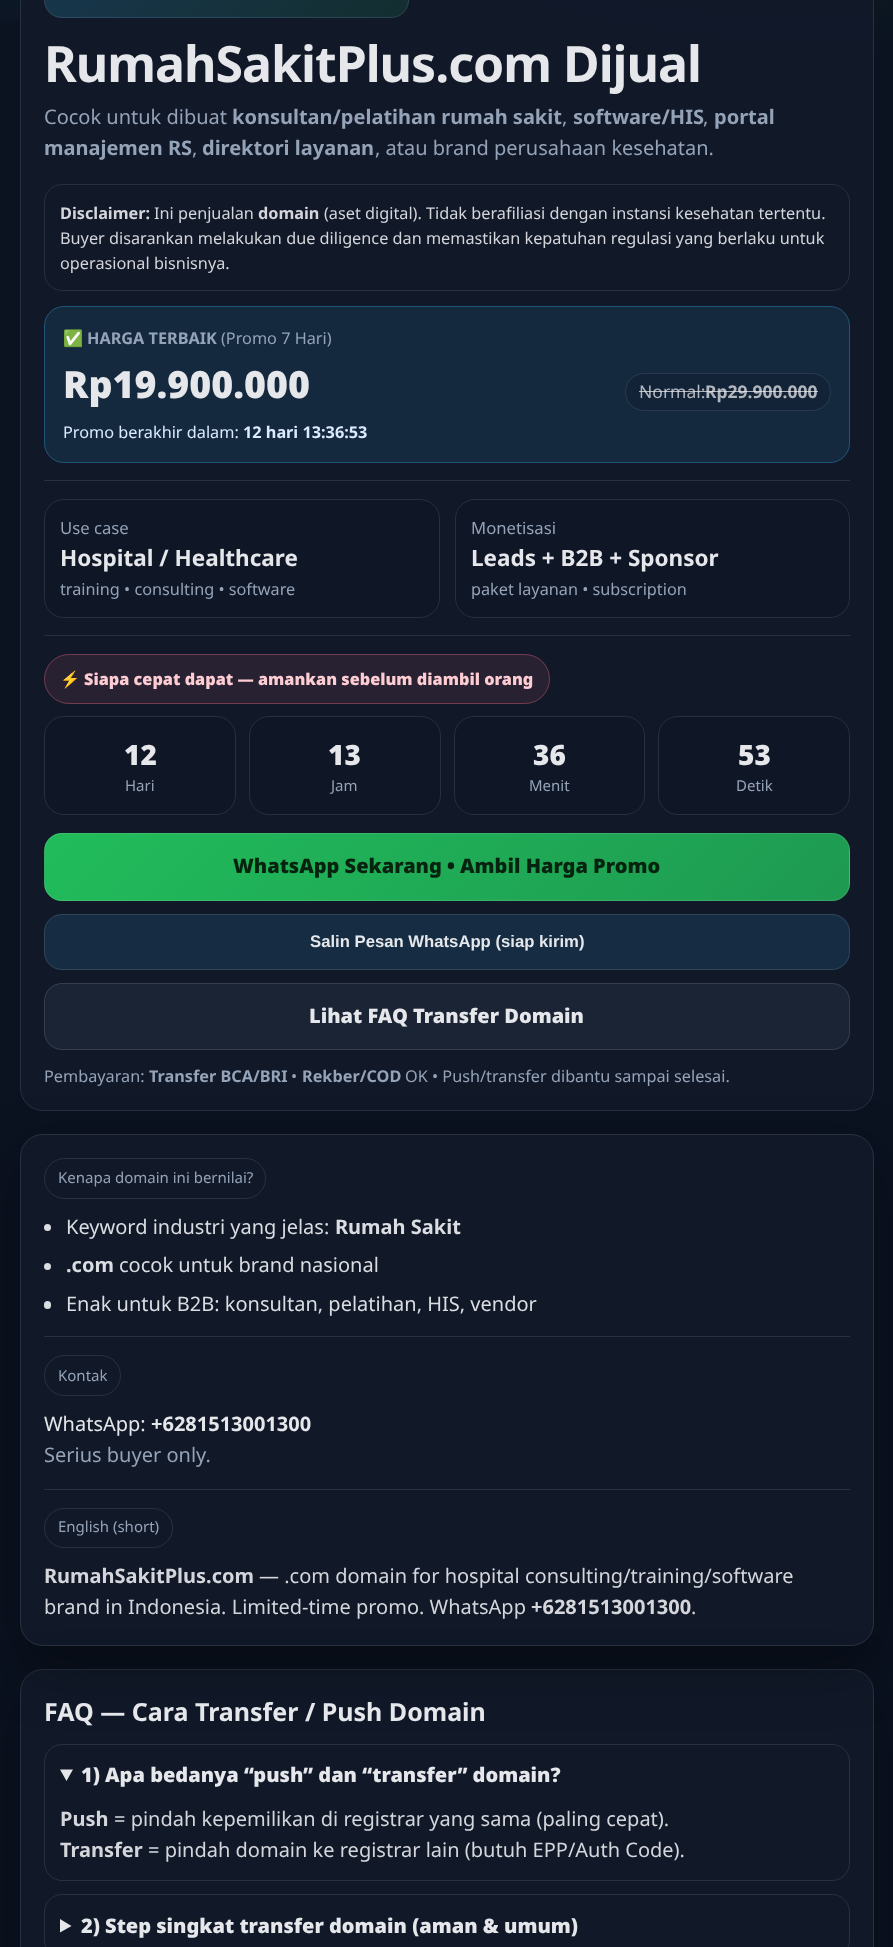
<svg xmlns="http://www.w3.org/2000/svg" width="893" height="1947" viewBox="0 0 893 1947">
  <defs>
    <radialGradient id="g1" gradientUnits="userSpaceOnUse" cx="0" cy="0" r="1" gradientTransform="matrix(1125 0 0 625 804 -287)"><stop offset="0" stop-color="rgb(15,50,43)"/><stop offset="0.55" stop-color="rgb(11,18,32)"/></radialGradient>
    <radialGradient id="g2" gradientUnits="userSpaceOnUse" cx="0" cy="0" r="1" gradientTransform="matrix(1250 0 0 625 89 -287)"><stop offset="0" stop-color="rgb(56,189,248)" stop-opacity="0.2"/><stop offset="0.55" stop-color="rgb(56,189,248)" stop-opacity="0"/></radialGradient>
    <clipPath id="clip1"><rect x="44" y="-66" width="365" height="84" rx="18"/></clipPath>
    <linearGradient id="g3" gradientUnits="userSpaceOnUse" x1="-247" y1="-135" x2="-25" y2="87"><stop offset="0" stop-color="rgb(24,55,79)"/><stop offset="1" stop-color="rgb(19,46,48)"/></linearGradient>
    <linearGradient id="g4" gradientUnits="userSpaceOnUse" x1="115" y1="-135" x2="337" y2="87"><stop offset="0" stop-color="rgb(24,55,79)"/><stop offset="1" stop-color="rgb(19,46,48)"/></linearGradient>
    <linearGradient id="g5" gradientUnits="userSpaceOnUse" x1="478" y1="-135" x2="700" y2="87"><stop offset="0" stop-color="rgb(24,54,79)"/><stop offset="1" stop-color="rgb(19,46,48)"/></linearGradient>
    <linearGradient id="g6" gradientUnits="userSpaceOnUse" x1="115" y1="-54" x2="337" y2="168"><stop offset="0" stop-color="rgb(24,55,79)"/><stop offset="1" stop-color="rgb(19,46,48)"/></linearGradient>
    <clipPath id="clip2"><rect x="44" y="833" width="806" height="68" rx="18"/></clipPath>
    <linearGradient id="g7" gradientUnits="userSpaceOnUse" x1="229" y1="583" x2="664" y2="1018"><stop offset="0" stop-color="rgb(33,188,91)"/><stop offset="1" stop-color="rgb(30,154,81)"/></linearGradient>
    <linearGradient id="g8" gradientUnits="userSpaceOnUse" x1="-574" y1="649" x2="-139" y2="1084"><stop offset="0" stop-color="rgb(33,188,91)"/><stop offset="1" stop-color="rgb(30,154,81)"/></linearGradient>
    <linearGradient id="g9" gradientUnits="userSpaceOnUse" x1="229" y1="649" x2="664" y2="1084"><stop offset="0" stop-color="rgb(33,188,91)"/><stop offset="1" stop-color="rgb(30,154,81)"/></linearGradient>
    <linearGradient id="g10" gradientUnits="userSpaceOnUse" x1="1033" y1="649" x2="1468" y2="1084"><stop offset="0" stop-color="rgb(33,188,91)"/><stop offset="1" stop-color="rgb(30,154,81)"/></linearGradient>
    <linearGradient id="g11" gradientUnits="userSpaceOnUse" x1="229" y1="716" x2="664" y2="1151"><stop offset="0" stop-color="rgb(33,188,91)"/><stop offset="1" stop-color="rgb(30,154,81)"/></linearGradient>
    <clipPath id="clip3"><path d="M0 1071H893V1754H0ZM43 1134H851C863.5 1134 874 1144.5 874 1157V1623C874 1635.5 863.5 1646 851 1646H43C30.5 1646 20 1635.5 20 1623V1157C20 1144.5 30.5 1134 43 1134Z" clip-rule="evenodd"/></clipPath>
  </defs>
  <rect width="100%" height="100%" fill="rgb(255,255,255)"/>
  <rect x="0" y="0" width="893" height="1947" fill="url(#g1)"/>
  <rect x="0" y="0" width="165" height="21" fill="url(#g2)"/>
  <rect x="20" y="-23" width="854" height="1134" rx="23" fill="rgba(18,26,43,0.82)"/>
  <rect x="20.5" y="-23.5" width="853" height="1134" rx="22.5" fill="none" stroke="rgba(148,163,184,0.18)"/>
  <g clip-path="url(#clip1)">
    <rect x="44" y="0" width="1" height="6" fill="url(#g3)"/>
    <rect x="45" y="0" width="363" height="16" fill="url(#g4)"/>
    <rect x="408" y="0" width="1" height="6" fill="url(#g5)"/>
    <rect x="54" y="16" width="345" height="2" fill="url(#g6)"/>
  </g>
  <rect x="44.5" y="-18.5" width="364" height="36" rx="17.5" fill="none" stroke="rgba(148,163,184,0.18)"/>
  <text x="44" y="82" font-family="Noto Sans" font-size="50" font-weight="bold" letter-spacing="-1" fill="rgb(229,231,235)">RumahSakitPlus.com Dijual</text>
  <text x="44" y="124" font-family="Noto Sans" font-size="20" fill="rgb(148,163,184)">Cocok untuk dibuat</text>
  <text x="232" y="124" font-family="Noto Sans" font-size="20" font-weight="bold" fill="rgb(148,163,184)">konsultan/pelatihan rumah sakit</text>
  <text x="562" y="124" font-family="Noto Sans" font-size="20" fill="rgb(148,163,184)">,</text>
  <text x="573" y="124" font-family="Noto Sans" font-size="20" font-weight="bold" fill="rgb(148,163,184)">software/HIS</text>
  <text x="703" y="124" font-family="Noto Sans" font-size="20" fill="rgb(148,163,184)">,</text>
  <g font-family="Noto Sans" font-size="20" font-weight="bold" fill="rgb(148,163,184)">
    <text x="714" y="124">portal</text>
    <text x="44" y="155">manajemen RS</text>
  </g>
  <text x="192" y="155" font-family="Noto Sans" font-size="20" fill="rgb(148,163,184)">,</text>
  <text x="202" y="155" font-family="Noto Sans" font-size="20" font-weight="bold" fill="rgb(148,163,184)">direktori layanan</text>
  <text x="375" y="155" font-family="Noto Sans" font-size="20" fill="rgb(148,163,184)">, atau brand perusahaan kesehatan.</text>
  <rect x="44.5" y="184.5" width="805" height="106" rx="17.5" fill="none" stroke="rgb(39,48,65)"/>
  <text x="60" y="219" font-family="Noto Sans" font-size="16.25" font-weight="bold" fill="rgb(212,214,219)">Disclaimer:</text>
  <text x="154" y="219" font-family="Noto Sans" font-size="16.25" fill="rgb(212,214,219)">Ini penjualan</text>
  <text x="258" y="219" font-family="Noto Sans" font-size="16.25" font-weight="bold" fill="rgb(212,214,219)">domain</text>
  <g font-family="Noto Sans" font-size="16.25" fill="rgb(212,214,219)">
    <text x="324" y="219">(aset digital). Tidak berafiliasi dengan instansi kesehatan tertentu.</text>
    <text>
      <tspan x="60" y="244">Buyer disarankan melakukan due diligence dan memastikan kepatuhan regulasi yang berlaku untuk</tspan>
      <tspan x="60" y="269">operasional bisnisnya.</tspan>
    </text>
  </g>
  <rect x="44" y="306" width="806" height="157" rx="20" fill="rgb(21,41,62)"/>
  <rect x="44.5" y="306.5" width="805" height="156" rx="19.5" fill="none" stroke="rgba(56,189,248,0.3)"/>
  <text x="63" y="344" font-family="Noto Color Emoji" font-size="16.25" fill="rgb(148,163,184)">✅</text>
  <text x="87" y="344" font-family="Noto Sans" font-size="16.25" font-weight="bold" fill="rgb(148,163,184)">HARGA TERBAIK</text>
  <text x="221" y="344" font-family="Noto Sans" font-size="16.25" fill="rgb(148,163,184)">(Promo 7 Hari)</text>
  <text x="63" y="398" font-family="Noto Sans" font-size="37.5" font-weight="900" fill="rgb(229,231,235)">Rp19.900.000</text>
  <rect x="625.5" y="373.5" width="205" height="37" rx="18.5" fill="rgb(19,35,55)" stroke="rgb(42,58,78)"/>
  <text x="639" y="398" font-family="Noto Sans" font-size="17.5" fill="rgb(177,182,190)">Normal:</text>
  <rect x="639" y="391" width="66" height="1" fill="rgba(229,231,235,0.75)"/>
  <text x="705" y="398" font-family="Noto Sans" font-size="17.5" font-weight="bold" fill="rgb(177,182,190)">Rp29.900.000</text>
  <rect x="705" y="391" width="113" height="1" fill="rgba(229,231,235,0.75)"/>
  <text x="63" y="438" font-family="Noto Sans" font-size="16.25" fill="rgb(219,234,254)">Promo berakhir dalam:</text>
  <text x="243" y="438" font-family="Noto Sans" font-size="16.25" font-weight="bold" fill="rgb(219,234,254)">12 hari 13:36:53</text>
  <rect x="44" y="480" width="806" height="1" fill="rgb(40,49,67)"/>
  <rect x="44.5" y="499.5" width="395" height="118" rx="19.5" fill="rgb(15,22,38)" stroke="rgb(39,47,64)"/>
  <text x="60" y="534" font-family="Noto Sans" font-size="16.7" fill="rgb(148,163,184)">Use case</text>
  <text x="60" y="566" font-family="Noto Sans" font-size="22.5" font-weight="bold" fill="rgb(229,231,235)">Hospital / Healthcare</text>
  <text x="60" y="595" font-family="Noto Sans" font-size="16.25" fill="rgb(148,163,184)">training • consulting • software</text>
  <rect x="455.5" y="499.5" width="394" height="118" rx="19.5" fill="rgb(15,22,38)" stroke="rgb(39,47,64)"/>
  <text x="471" y="534" font-family="Noto Sans" font-size="16.7" fill="rgb(148,163,184)">Monetisasi</text>
  <text x="471" y="566" font-family="Noto Sans" font-size="22.5" font-weight="bold" fill="rgb(229,231,235)">Leads + B2B + Sponsor</text>
  <text x="471" y="595" font-family="Noto Sans" font-size="16.25" fill="rgb(148,163,184)">paket layanan • subscription</text>
  <rect x="44" y="635" width="806" height="1" fill="rgb(40,49,67)"/>
  <rect x="44" y="654" width="506" height="50" rx="25" fill="rgb(40,33,50)"/>
  <rect x="44.5" y="654.5" width="505" height="49" rx="24.5" fill="none" stroke="rgba(251,113,133,0.35)"/>
  <text x="60" y="685" font-family="Noto Color Emoji" font-size="16.25" font-weight="bold" fill="rgb(254,205,211)">⚡</text>
  <text x="84" y="685" font-family="Noto Sans" font-size="16.25" font-weight="900" fill="rgb(254,205,211)">Siapa cepat dapat — amankan sebelum diambil orang</text>
  <rect x="44.5" y="716.5" width="191" height="98" rx="19.5" fill="rgb(15,22,38)" stroke="rgb(39,47,64)"/>
  <text x="124" y="765" font-family="Noto Sans" font-size="28" font-weight="900" fill="rgb(229,231,235)">12</text>
  <text x="125" y="791" font-family="Noto Sans" font-size="15" fill="rgb(148,163,184)">Hari</text>
  <rect x="249.5" y="716.5" width="191" height="98" rx="19.5" fill="rgb(15,22,38)" stroke="rgb(39,47,64)"/>
  <text x="328" y="765" font-family="Noto Sans" font-size="28" font-weight="900" fill="rgb(229,231,235)">13</text>
  <text x="331" y="791" font-family="Noto Sans" font-size="15" fill="rgb(148,163,184)">Jam</text>
  <rect x="454.5" y="716.5" width="190" height="98" rx="19.5" fill="rgb(15,22,38)" stroke="rgb(39,47,64)"/>
  <text x="533" y="765" font-family="Noto Sans" font-size="28" font-weight="900" fill="rgb(229,231,235)">36</text>
  <text x="529" y="791" font-family="Noto Sans" font-size="15" fill="rgb(148,163,184)">Menit</text>
  <rect x="658.5" y="716.5" width="191" height="98" rx="19.5" fill="rgb(15,22,38)" stroke="rgb(39,47,64)"/>
  <text x="738" y="765" font-family="Noto Sans" font-size="28" font-weight="900" fill="rgb(229,231,235)">53</text>
  <text x="736" y="791" font-family="Noto Sans" font-size="15" fill="rgb(148,163,184)">Detik</text>
  <g clip-path="url(#clip2)">
    <rect x="56" y="833" width="782" height="1" fill="url(#g7)"/>
    <rect x="44" y="845" width="1" height="44" fill="url(#g8)"/>
    <rect x="45" y="834" width="804" height="66" fill="url(#g9)"/>
    <rect x="849" y="845" width="1" height="44" fill="url(#g10)"/>
    <rect x="56" y="900" width="782" height="1" fill="url(#g11)"/>
  </g>
  <rect x="44.5" y="833.5" width="805" height="67" rx="17.5" fill="none" stroke="rgba(255,255,255,0.12)"/>
  <text x="233" y="873" font-family="Noto Sans" font-size="20" font-weight="900" fill="rgb(5,35,15)">WhatsApp Sekarang • Ambil Harga Promo</text>
  <rect x="44" y="914" width="806" height="56" rx="18" fill="rgb(21,44,66)"/>
  <rect x="44.5" y="914.5" width="805" height="55" rx="17.5" fill="none" stroke="rgba(255,255,255,0.12)"/>
  <text x="310" y="947" font-family="Liberation Sans" font-size="16.7" font-weight="bold" fill="rgb(229,231,235)">Salin Pesan WhatsApp (siap kirim)</text>
  <rect x="44" y="983" width="806" height="67" rx="18" fill="rgb(27,36,52)"/>
  <rect x="44.5" y="983.5" width="805" height="66" rx="17.5" fill="none" stroke="rgba(255,255,255,0.12)"/>
  <text x="309" y="1023" font-family="Noto Sans" font-size="20" font-weight="900" fill="rgb(229,231,235)">Lihat FAQ Transfer Domain</text>
  <text x="44" y="1082" font-family="Noto Sans" font-size="16.25" fill="rgb(148,163,184)">Pembayaran:</text>
  <text x="149" y="1082" font-family="Noto Sans" font-size="16.25" font-weight="bold" fill="rgb(148,163,184)">Transfer BCA/BRI</text>
  <text x="291" y="1082" font-family="Noto Sans" font-size="16.25" fill="rgb(148,163,184)">•</text>
  <text x="302" y="1082" font-family="Noto Sans" font-size="16.25" font-weight="bold" fill="rgb(148,163,184)">Rekber/COD</text>
  <text x="405" y="1082" font-family="Noto Sans" font-size="16.25" fill="rgb(148,163,184)">OK • Push/transfer dibantu sampai selesai.</text>
  <rect x="20" y="1691" width="854" height="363" rx="23" fill="rgba(0,0,0,0.35)" filter="blur(28px)"/>
  <rect x="20" y="1669" width="854" height="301" rx="23" fill="rgb(17,25,41)"/>
  <rect x="20.5" y="1669.5" width="853" height="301" rx="22.5" fill="none" stroke="rgba(148,163,184,0.18)"/>
  <rect x="44.5" y="1744.5" width="805" height="136" rx="17.5" fill="none" stroke="rgb(40,48,65)"/>
  <g clip-path="url(#clip3)">
    <rect x="20" y="1156" width="854" height="513" rx="23" fill="rgba(0,0,0,0.35)" filter="blur(28px)"/>
  </g>
  <rect x="20" y="1134" width="854" height="512" rx="23" fill="rgba(18,26,43,0.82)"/>
  <rect x="20.5" y="1134.5" width="853" height="511" rx="22.5" fill="none" stroke="rgba(148,163,184,0.18)"/>
  <rect x="44.5" y="1158.5" width="221" height="40" rx="20" fill="none" stroke="rgb(40,49,67)"/>
  <text x="58" y="1183" font-family="Noto Sans" font-size="15" fill="rgb(148,163,184)">Kenapa domain ini bernilai?</text>
  <circle cx="47.5" cy="1227.5" r="3.5" fill="rgb(218,221,225)"/>
  <text x="66" y="1234" font-family="Noto Sans" font-size="20" fill="rgb(218,221,225)">Keyword industri yang jelas:</text>
  <text x="335" y="1234" font-family="Noto Sans" font-size="20" font-weight="bold" fill="rgb(218,221,225)">Rumah Sakit</text>
  <circle cx="47.5" cy="1266.5" r="3.5" fill="rgb(218,221,225)"/>
  <text x="66" y="1272" font-family="Noto Sans" font-size="20" font-weight="bold" fill="rgb(218,221,225)">.com</text>
  <text x="119" y="1272" font-family="Noto Sans" font-size="20" fill="rgb(218,221,225)">cocok untuk brand nasional</text>
  <rect x="44" y="1301" width="7" height="8" rx="3.5" fill="rgb(218,221,225)"/>
  <text x="66" y="1311" font-family="Noto Sans" font-size="20" fill="rgb(218,221,225)">Enak untuk B2B: konsultan, pelatihan, HIS, vendor</text>
  <rect x="44" y="1336" width="806" height="1" fill="rgb(40,49,67)"/>
  <rect x="44.5" y="1355.5" width="76" height="40" rx="20" fill="none" stroke="rgb(40,49,67)"/>
  <text x="58" y="1381" font-family="Noto Sans" font-size="15" fill="rgb(148,163,184)">Kontak</text>
  <text x="44" y="1431" font-family="Noto Sans" font-size="20" fill="rgb(229,231,235)">WhatsApp:</text>
  <text x="151" y="1431" font-family="Noto Sans" font-size="20" font-weight="bold" fill="rgb(229,231,235)">+6281513001300</text>
  <text x="44" y="1462" font-family="Noto Sans" font-size="20" fill="rgb(148,163,184)">Serius buyer only.</text>
  <rect x="44" y="1489" width="806" height="1" fill="rgb(40,49,67)"/>
  <rect x="44.5" y="1508.5" width="128" height="39" rx="19.5" fill="none" stroke="rgb(40,49,67)"/>
  <text x="58" y="1532" font-family="Noto Sans" font-size="15" fill="rgb(148,163,184)">English (short)</text>
  <text x="44" y="1583" font-family="Noto Sans" font-size="20" font-weight="bold" fill="rgb(212,214,219)">RumahSakitPlus.com</text>
  <g font-family="Noto Sans" font-size="20" fill="rgb(212,214,219)">
    <text x="259" y="1583">— .com domain for hospital consulting/training/software</text>
    <text x="44" y="1614">brand in Indonesia. Limited-time promo. WhatsApp</text>
  </g>
  <text x="531" y="1614" font-family="Noto Sans" font-size="20" font-weight="bold" fill="rgb(212,214,219)">+6281513001300</text>
  <text x="691" y="1614" font-family="Noto Sans" font-size="20" fill="rgb(212,214,219)">.</text>
  <text x="44" y="1721" font-family="Noto Sans" font-size="25" font-weight="bold" fill="rgb(229,231,235)">FAQ — Cara Transfer / Push Domain</text>
  <path d="M60 1769.5H73L66.5 1781Z" fill="rgb(229,231,235)"/>
  <text x="81" y="1782" font-family="Noto Sans" font-size="20" font-weight="900" fill="rgb(229,231,235)">1) Apa bedanya “push” dan “transfer” domain?</text>
  <text x="60" y="1826" font-family="Noto Sans" font-size="20" font-weight="bold" fill="rgb(212,214,219)">Push</text>
  <text x="114" y="1826" font-family="Noto Sans" font-size="20" fill="rgb(212,214,219)">= pindah kepemilikan di registrar yang sama (paling cepat).</text>
  <text x="60" y="1857" font-family="Noto Sans" font-size="20" font-weight="bold" fill="rgb(212,214,219)">Transfer</text>
  <text x="148" y="1857" font-family="Noto Sans" font-size="20" fill="rgb(212,214,219)">= pindah domain ke registrar lain (butuh EPP/Auth Code).</text>
  <rect x="44.5" y="1894.5" width="805" height="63" rx="17.5" fill="none" stroke="rgb(40,48,65)"/>
  <path d="M60 1919L71.5 1926L60 1932.5Z" fill="rgb(229,231,235)"/>
  <text x="81" y="1933" font-family="Noto Sans" font-size="20" font-weight="900" fill="rgb(229,231,235)">2) Step singkat transfer domain (aman &amp; umum)</text>
</svg>
